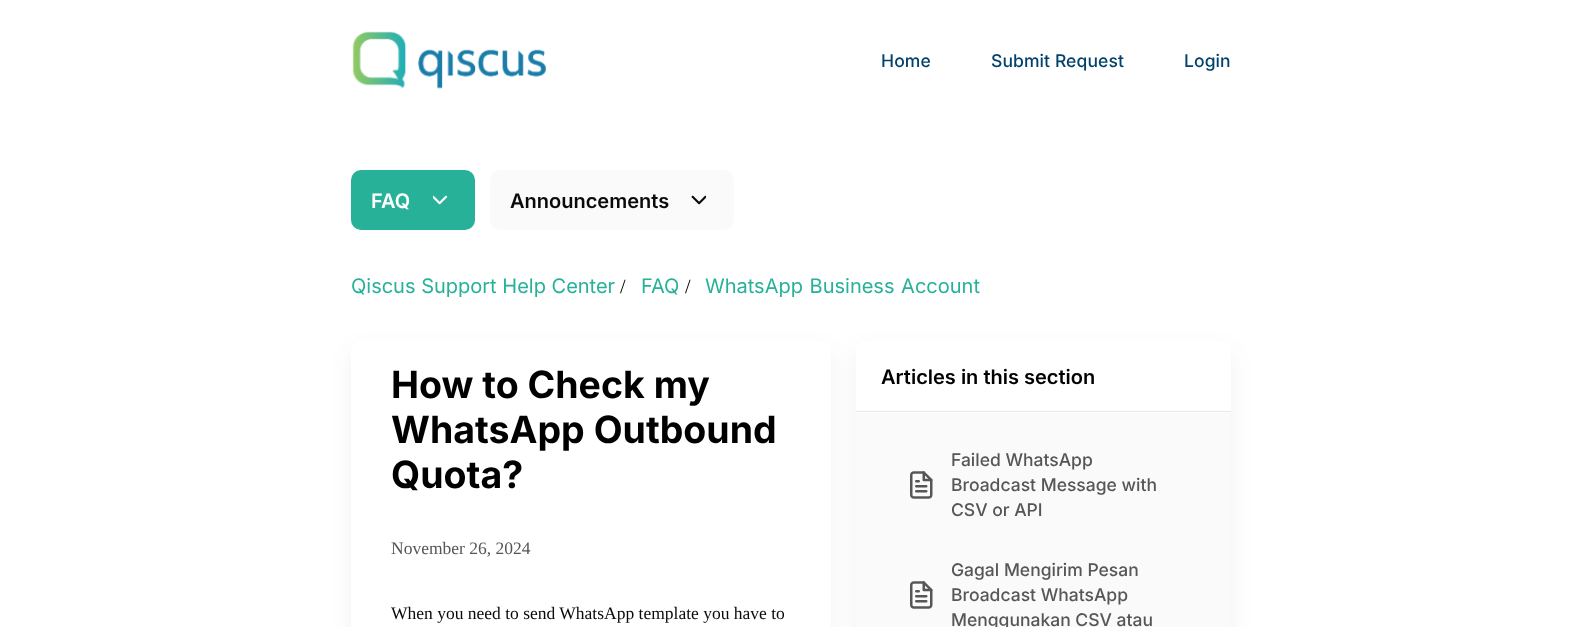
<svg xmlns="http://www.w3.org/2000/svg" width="1581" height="627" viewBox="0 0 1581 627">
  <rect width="100%" height="100%" fill="rgb(255,255,255)"/>
  <image x="352" y="31" width="195" height="58" href="pic1.png"/>
  <g font-family="Inter" font-size="17.5" font-weight="500" letter-spacing="0.1" fill="rgb(1,65,108)">
    <text x="881" y="67">Home</text>
    <text x="991" y="67">Submit Request</text>
    <text x="1184" y="67">Login</text>
  </g>
  <rect x="351" y="170" width="124" height="60" rx="10" fill="rgb(39,177,153)"/>
  <text x="371" y="208" font-family="Inter" font-size="20" font-weight="600" fill="rgb(255,255,255)">FAQ</text>
  <image x="433" y="195" width="15" height="10" href="pic2.png"/>
  <rect x="490" y="170" width="244" height="60" rx="10" fill="rgb(250,250,250)"/>
  <text x="510" y="208" font-family="Inter" font-size="20" font-weight="600" fill="rgb(10,10,10)">Announcements</text>
  <image x="691" y="195" width="15" height="10" href="pic3.png"/>
  <text x="351" y="293" font-family="Inter" font-size="20" fill="rgb(39,177,153)">Qiscus Support Help Center</text>
  <text x="620" y="293" font-family="Liberation Serif" font-size="20" fill="rgb(0,0,0)">/</text>
  <text x="641" y="293" font-family="Inter" font-size="20" fill="rgb(39,177,153)">FAQ</text>
  <text x="685" y="293" font-family="Liberation Serif" font-size="20" fill="rgb(0,0,0)">/</text>
  <text x="705" y="293" word-spacing="1" font-family="Inter" font-size="20" fill="rgb(39,177,153)">WhatsApp Business Account</text>
  <rect x="351" y="350" width="480" height="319" rx="10" fill="rgba(51,51,51,0.07)" filter="blur(10.5px)"/>
  <rect x="351" y="341" width="480" height="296" rx="10" fill="rgb(255,255,255)"/>
  <g font-family="Inter" font-size="37.5" font-weight="bold" fill="rgb(0,0,0)">
    <text>
      <tspan x="391" y="398">How to Check my</tspan>
      <tspan x="391" y="443">WhatsApp Outbound</tspan>
      <tspan x="391" y="488">Quota?</tspan>
    </text>
  </g>
  <text x="391" y="554" font-family="Liberation Serif" font-size="17.5" fill="rgb(86,86,86)">November 26, 2024</text>
  <text x="391" y="619" font-family="Liberation Serif" font-size="17.5" fill="rgb(10,10,10)">When you need to send WhatsApp template you have to</text>
  <rect x="856" y="350" width="375" height="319" rx="10" fill="rgba(51,51,51,0.07)" filter="blur(10.5px)"/>
  <rect x="856" y="341" width="375" height="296" rx="10" fill="rgb(255,255,255)"/>
  <rect x="856" y="411" width="375" height="1" fill="rgb(229,231,235)"/>
  <text x="881" y="384" font-family="Inter" font-size="20" font-weight="600" fill="rgb(0,0,0)">Articles in this section</text>
  <rect x="856" y="413" width="375" height="214" fill="rgb(250,250,250)"/>
  <image x="910" y="471" width="23" height="28" href="pic4.png"/>
  <g font-family="Inter" font-size="17.5" font-weight="500" fill="rgb(86,86,86)">
    <text>
      <tspan x="951" y="466">Failed WhatsApp</tspan>
      <tspan x="951" y="491">Broadcast Message with</tspan>
      <tspan x="951" y="516">CSV or API</tspan>
    </text>
  </g>
  <image x="910" y="581" width="23" height="28" href="pic4.png"/>
  <g font-family="Inter" font-size="17.5" font-weight="500" fill="rgb(86,86,86)">
    <text>
      <tspan x="951" y="576">Gagal Mengirim Pesan</tspan>
      <tspan x="951" y="601">Broadcast WhatsApp</tspan>
      <tspan x="951" y="626">Menggunakan CSV atau</tspan>
    </text>
  </g>
</svg>
